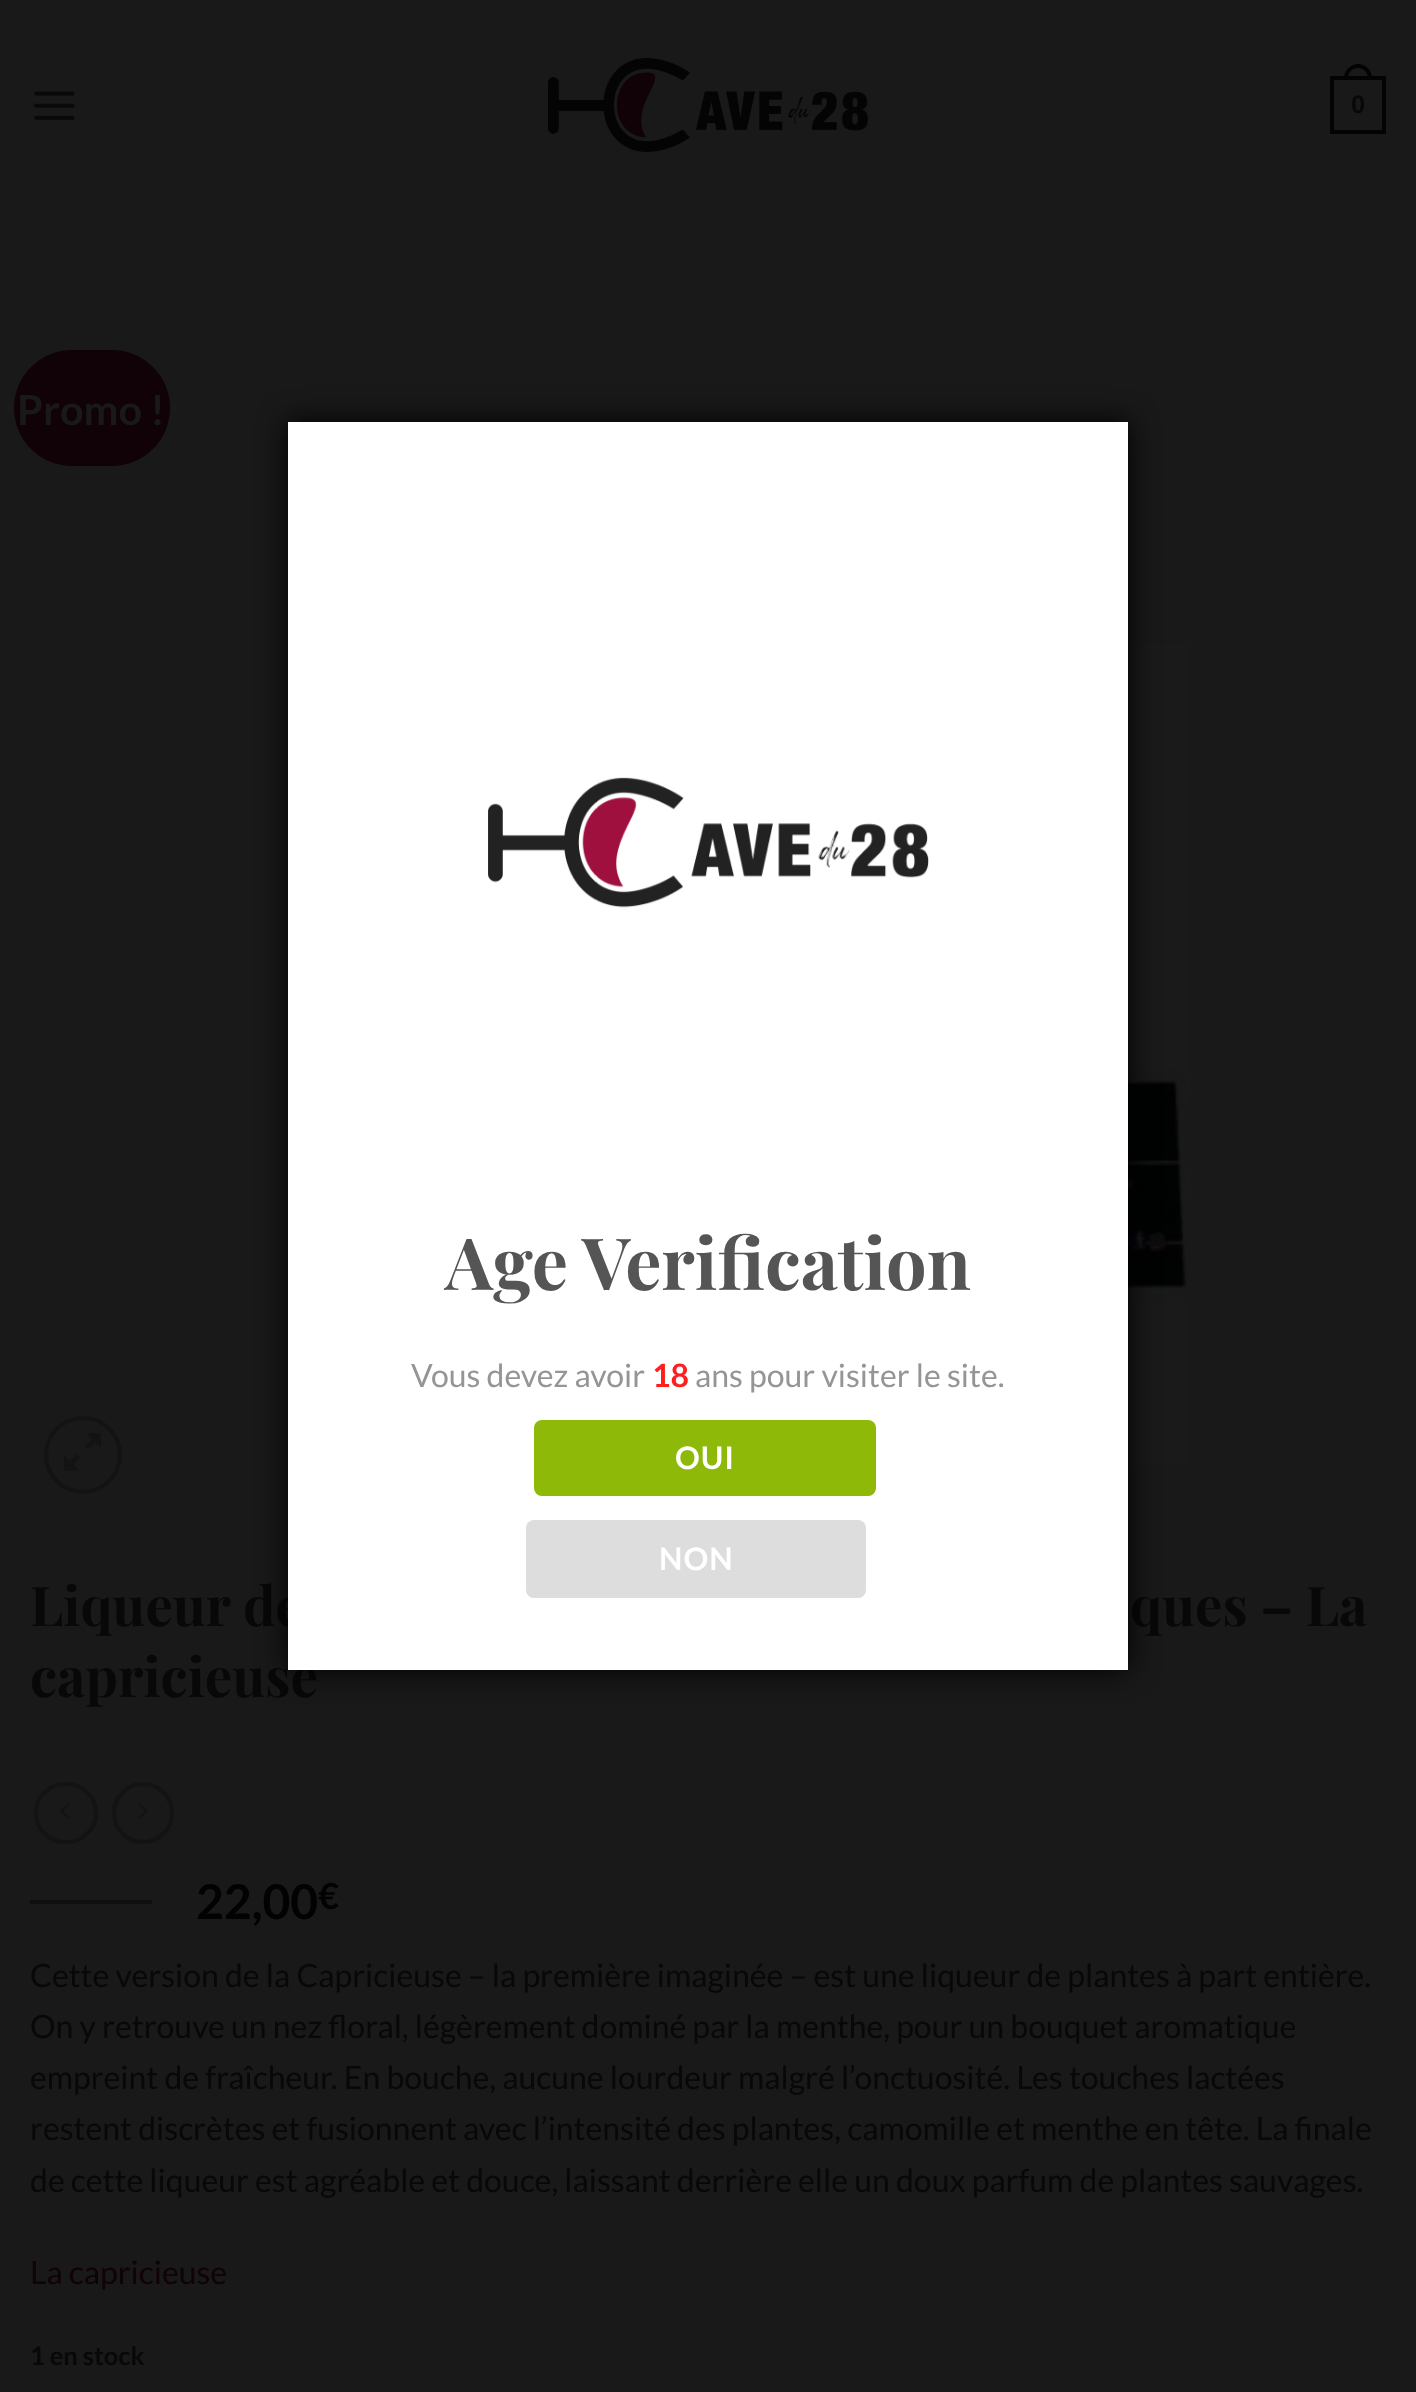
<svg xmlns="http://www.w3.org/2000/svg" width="1416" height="2392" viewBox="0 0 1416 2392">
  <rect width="100%" height="100%" fill="rgb(25,25,25)"/>
  <image x="34" y="91" width="41" height="29" href="pic1.png"/>
  <image x="548" y="58" width="320" height="94" href="pic2.png"/>
  <rect x="1332" y="78" width="52" height="54" fill="none" stroke="rgb(3,3,3)" stroke-width="4"/>
  <path d="M1358 64C1365.5 64 1372 70.5 1372 78V80H1344V78C1344 70.5 1350.5 64 1358 64ZM1358 68C1363.5 68 1368 72.5 1368 78V80H1348V78C1348 72.5 1352.5 68 1358 68Z" fill="rgb(3,3,3)" fill-rule="evenodd"/>
  <text x="1351" y="113" font-family="Liberation Sans" font-size="25.5" font-weight="bold" fill="rgb(8,8,8)">0</text>
  <rect x="14" y="350" width="156" height="116" rx="58" fill="rgb(16,2,6)"/>
  <text x="17" y="425" font-family="Lato" font-size="41.5" font-weight="bold" fill="rgb(25,25,25)">Promo !</text>
  <circle cx="83" cy="1455" r="37" fill="none" stroke="rgb(19,19,19)" stroke-width="4"/>
  <path d="M101 1433V1448L95.5 1442.5L88.5 1449.5L85 1446L92 1439L86 1433ZM80.5 1457.5L73.5 1464.5L79 1470.5H64V1455L70 1461L77 1454Z" fill="rgb(19,19,19)"/>
  <image x="1128" y="644" width="61" height="821" href="pic3.png"/>
  <g font-family="Playfair Display" font-size="54.5" font-weight="bold" fill="rgb(8,8,8)">
    <text x="30" y="1626">Liqueur de</text>
    <text x="1130" y="1626">ques – La</text>
    <text x="30" y="1697">capricieuse</text>
  </g>
  <rect x="36" y="1784" width="60" height="58" rx="29" fill="none" stroke="rgb(19,19,19)" stroke-width="4"/>
  <image x="60" y="1802" width="10" height="18" href="pic4.png"/>
  <circle cx="143" cy="1813" r="29" fill="none" stroke="rgb(19,19,19)" stroke-width="4"/>
  <image x="138" y="1802" width="10" height="18" href="pic5.png"/>
  <rect x="30" y="1900" width="122" height="4" fill="rgb(15,15,15)"/>
  <text x="196" y="1919" font-family="Lato" font-size="48" font-weight="bold" fill="rgb(2,2,2)">22,00</text>
  <text x="318" y="1909" font-family="Lato" font-size="36" font-weight="bold" fill="rgb(2,2,2)">€</text>
  <g font-family="Lato" font-size="32" fill="rgb(8,8,8)">
    <text>
      <tspan x="30" y="1987">Cette version de la Capricieuse – la première imaginée – est une liqueur de plantes à part entière.</tspan>
      <tspan x="30" y="2038">On y retrouve un nez floral, légèrement dominé par la menthe, pour un bouquet aromatique</tspan>
      <tspan x="30" y="2089">empreint de fraîcheur. En bouche, aucune lourdeur malgré l’onctuosité. Les touches lactées</tspan>
      <tspan x="30" y="2140">restent discrètes et fusionnent avec l’intensité des plantes, camomille et menthe en tête. La finale</tspan>
      <tspan x="30" y="2192">de cette liqueur est agréable et douce, laissant derrière elle un doux parfum de plantes sauvages.</tspan>
    </text>
  </g>
  <text x="30" y="2284" font-family="Lato" font-size="32" fill="rgb(16,2,6)">La capricieuse</text>
  <text x="30" y="2365" font-family="Lato" font-size="25.5" font-weight="bold" fill="rgb(8,8,8)">1 en stock</text>
  <rect x="288" y="422" width="840" height="1248" fill="rgb(0,0,0)" filter="blur(15px)"/>
  <rect x="288" y="422" width="840" height="1248" fill="rgb(255,255,255)"/>
  <image x="488" y="777" width="441" height="131" href="pic6.png"/>
  <text x="445" y="1290" font-family="Playfair Display" font-size="72" font-weight="bold" fill="rgb(85,85,85)">Age Verification</text>
  <text x="411" y="1387" font-family="Lato" font-size="32" fill="rgb(149,149,149)">Vous devez avoir</text>
  <text x="652" y="1387" font-family="Lato" font-size="32" font-weight="bold" fill="rgb(255,31,31)">18</text>
  <text x="695" y="1387" font-family="Lato" font-size="32" fill="rgb(149,149,149)">ans pour visiter le site.</text>
  <rect x="534" y="1420" width="342" height="76" rx="8" fill="rgb(142,185,8)"/>
  <text x="675" y="1469" font-family="Lato" font-size="31" font-weight="bold" letter-spacing="1" fill="rgb(255,255,255)">OUI</text>
  <rect x="526" y="1520" width="340" height="78" rx="8" fill="rgb(221,221,221)"/>
  <text x="659" y="1570" font-family="Lato" font-size="31" font-weight="bold" letter-spacing="1" fill="rgb(255,255,255)">NON</text>
</svg>
